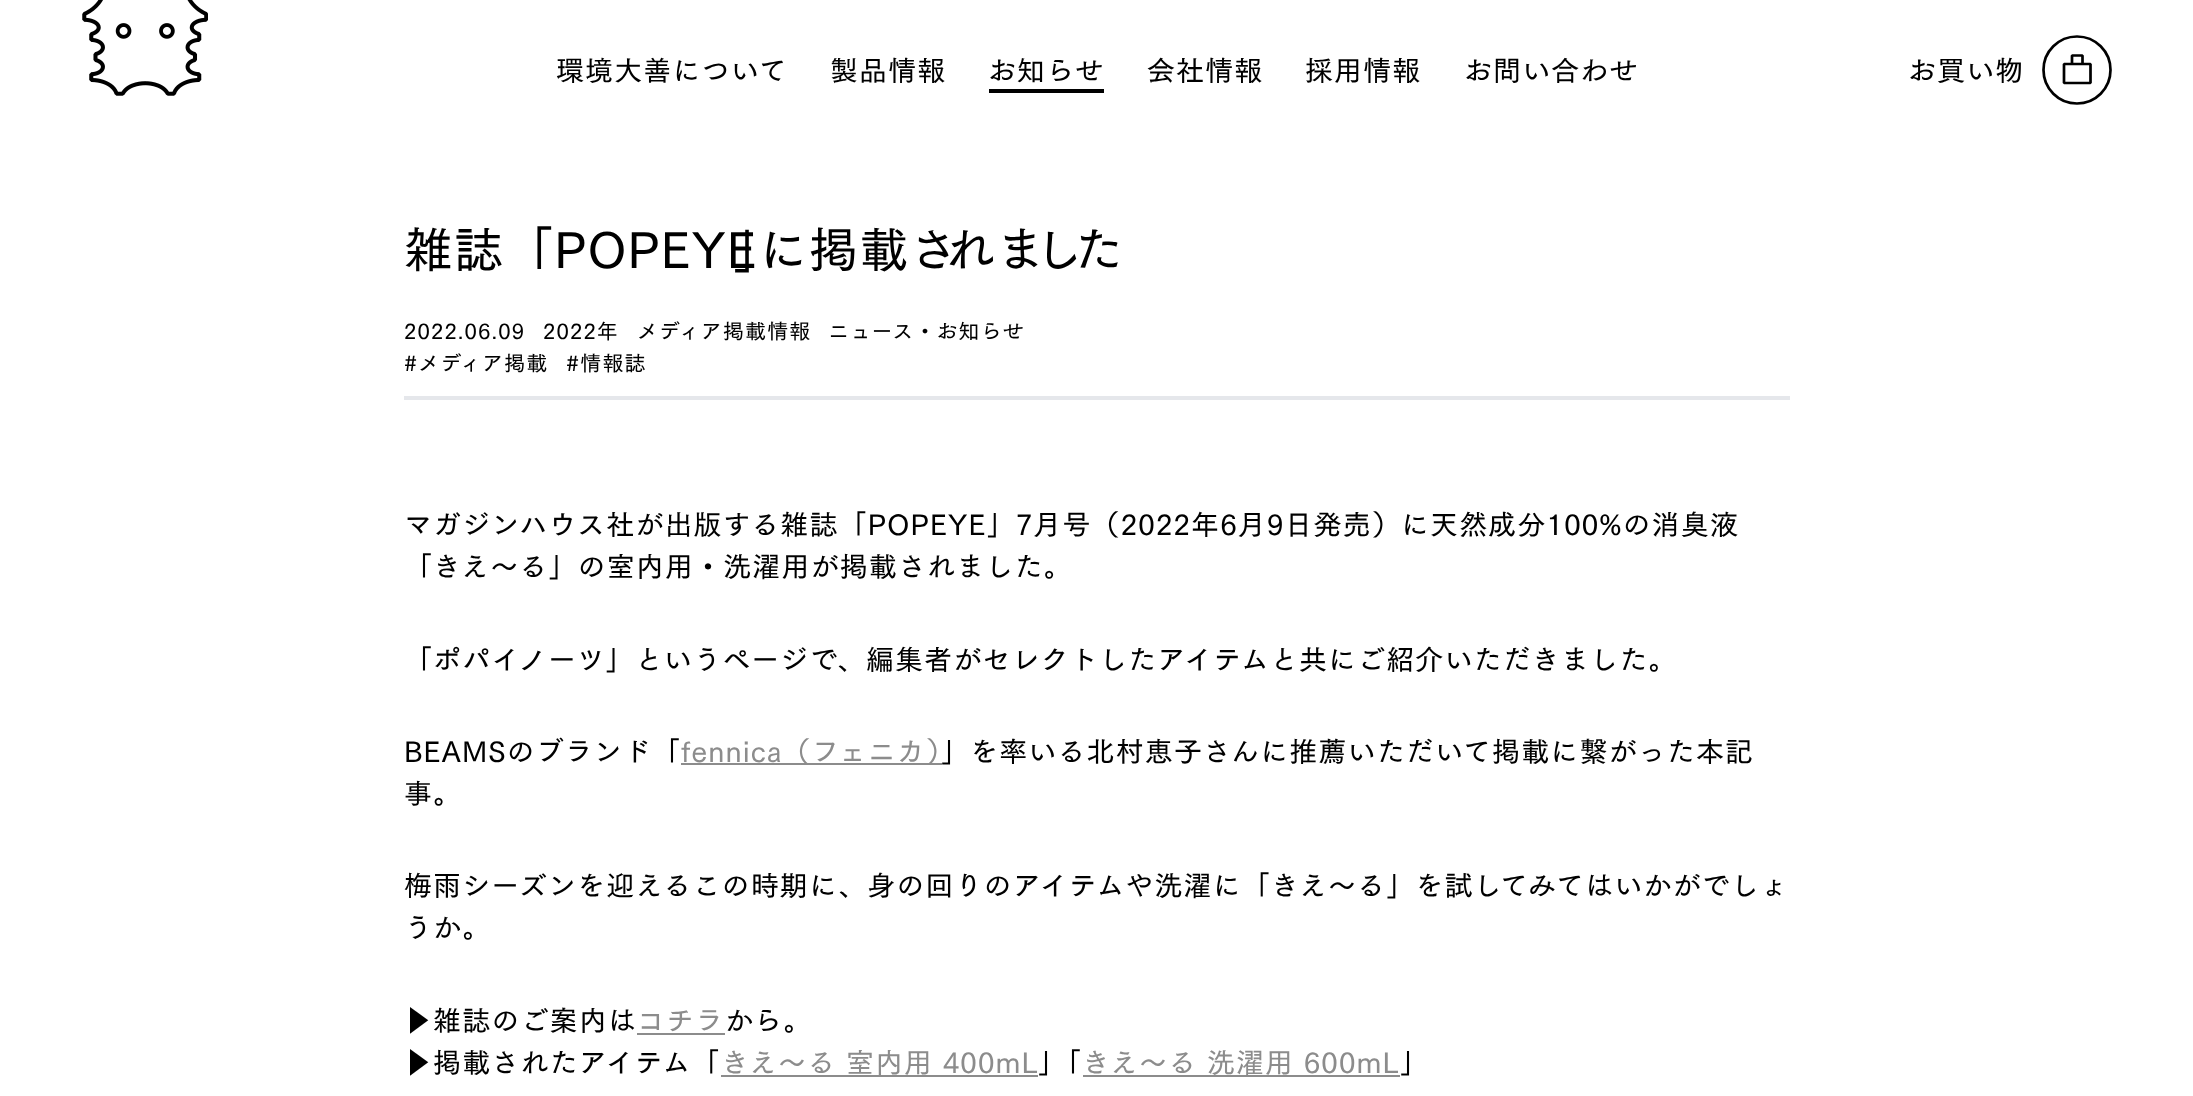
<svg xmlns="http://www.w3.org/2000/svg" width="2193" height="1096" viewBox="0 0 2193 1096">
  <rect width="100%" height="100%" fill="rgb(255,255,255)"/>
  <g font-family="'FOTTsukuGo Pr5'" font-size="28" font-weight="600" letter-spacing="1.12" fill="rgb(0,0,0)">
    <text x="556" y="81">環境大善について</text>
    <text x="830" y="81">製品情報</text>
    <text x="988" y="81">お知らせ</text>
  </g>
  <rect x="989" y="89" width="115" height="4" fill="rgb(0,0,0)"/>
  <g font-family="'FOTTsukuGo Pr5'" font-size="28" font-weight="600" letter-spacing="1.12" fill="rgb(0,0,0)">
    <text x="1147" y="81">会社情報</text>
    <text x="1305" y="81">採用情報</text>
    <text x="1464" y="81">お問い合わせ</text>
  </g>
  <image x="82" y="0" width="126" height="96" href="pic1.png"/>
  <text x="1908" y="81" font-family="'FOTTsukuGo Pr5'" font-size="28" font-weight="600" letter-spacing="1.12" fill="rgb(0,0,0)">お買い物</text>
  <path d="M2064 64H2090.5V83H2064ZM2072 63.5V55.5H2082.5V64" fill="none" stroke="rgb(0,0,0)" stroke-width="2.7" stroke-linejoin="bevel"/>
  <circle cx="2077" cy="70" r="33.5" fill="none" stroke="rgb(0,0,0)" stroke-width="2.7"/>
  <rect x="404" y="396" width="1386" height="4" fill="rgb(229,231,235)"/>
  <text x="404" y="268" font-family="'FOTTsukuGo Pr5'" font-size="49" font-weight="600" letter-spacing="1.12" fill="rgb(0,0,0)">雑誌「POPEYE</text>
  <text x="733" y="268" font-family="'FOTTsukuGo Pr5'" font-size="49" font-weight="600" letter-spacing="1.12" fill="rgb(0,0,0)">」</text>
  <text x="759" y="268" font-family="'FOTTsukuGo Pr5'" font-size="49" font-weight="600" letter-spacing="1.12" fill="rgb(0,0,0)">に掲載さ</text>
  <text x="946" y="268" font-family="'FOTTsukuGo Pr5'" font-size="49" font-weight="600" letter-spacing="1.12" fill="rgb(0,0,0)">れま</text>
  <text x="1034" y="268" font-family="'FOTTsukuGo Pr5'" font-size="49" font-weight="600" letter-spacing="1.12" fill="rgb(0,0,0)">し</text>
  <text x="1074" y="268" font-family="'FOTTsukuGo Pr5'" font-size="49" font-weight="600" letter-spacing="1.12" fill="rgb(0,0,0)">た</text>
  <g font-family="'FOTTsukuGo Pr5'" font-size="21" font-weight="600" letter-spacing="1.12" fill="rgb(0,0,0)">
    <text x="404" y="339">2022.06.09</text>
    <text x="543" y="339">2022年</text>
    <text x="637" y="339">メディア掲載情報</text>
    <text x="828" y="339">ニュース・お知らせ</text>
    <text x="404" y="371">#メディア掲載</text>
    <text x="566" y="371">#情報誌</text>
  </g>
  <g font-family="'FOTTsukuGo Pr5'" font-size="28" font-weight="600" letter-spacing="1.12" fill="rgb(0,0,0)">
    <text>
      <tspan x="404" y="535">マガジンハウス社が出版する雑誌「POPEYE」7月号（2022年6月9日発売）に天然成分100%の消臭液</tspan>
      <tspan x="404" y="577">「きえ〜る」の室内用・洗濯用が掲載されました。</tspan>
    </text>
    <text x="404" y="670">「ポパイノーツ」というページで、編集者がセレクトしたアイテムと共にご紹介いただきました。</text>
    <text x="404" y="762">BEAMSのブランド「</text>
  </g>
  <rect x="681" y="763" width="261" height="2" fill="rgb(140,140,140)"/>
  <text x="681" y="762" font-family="'FOTTsukuGo Pr5'" font-size="28" font-weight="600" letter-spacing="1.12" fill="rgb(140,140,140)">fennica（フェニカ）</text>
  <g font-family="'FOTTsukuGo Pr5'" font-size="28" font-weight="600" letter-spacing="1.12" fill="rgb(0,0,0)">
    <text x="941" y="762">」を率いる北村恵子さんに推薦いただいて掲載に繋がった本記</text>
    <text x="404" y="804">事。</text>
    <text>
      <tspan x="404" y="896">梅雨シーズンを迎えるこの時期に、身の回りのアイテムや洗濯に「きえ〜る」を試してみてはいかがでしょ</tspan>
      <tspan x="404" y="938">うか。</tspan>
    </text>
    <text x="404" y="1031">▶︎雑誌のご案内は</text>
  </g>
  <text x="637" y="1031" font-family="'FOTTsukuGo Pr5'" font-size="28" font-weight="600" letter-spacing="1.12" fill="rgb(140,140,140)">コチラ</text>
  <rect x="637" y="1033" width="88" height="2" fill="rgb(140,140,140)"/>
  <g font-family="'FOTTsukuGo Pr5'" font-size="28" font-weight="600" letter-spacing="1.12" fill="rgb(0,0,0)">
    <text x="725" y="1031">から。</text>
    <text x="404" y="1073">▶︎掲載されたアイテム「</text>
  </g>
  <text x="721" y="1073" font-family="'FOTTsukuGo Pr5'" font-size="28" font-weight="600" letter-spacing="1.12" fill="rgb(140,140,140)">きえ〜る 室内用 400mL</text>
  <rect x="721" y="1075" width="317" height="2" fill="rgb(140,140,140)"/>
  <text x="1038" y="1073" font-family="'FOTTsukuGo Pr5'" font-size="28" font-weight="600" letter-spacing="1.12" fill="rgb(0,0,0)">」「</text>
  <rect x="1083" y="1075" width="317" height="2" fill="rgb(140,140,140)"/>
  <text x="1082" y="1073" font-family="'FOTTsukuGo Pr5'" font-size="28" font-weight="600" letter-spacing="1.12" fill="rgb(140,140,140)">きえ〜る 洗濯用 600mL</text>
  <text x="1400" y="1073" font-family="'FOTTsukuGo Pr5'" font-size="28" font-weight="600" letter-spacing="1.12" fill="rgb(0,0,0)">」</text>
</svg>
